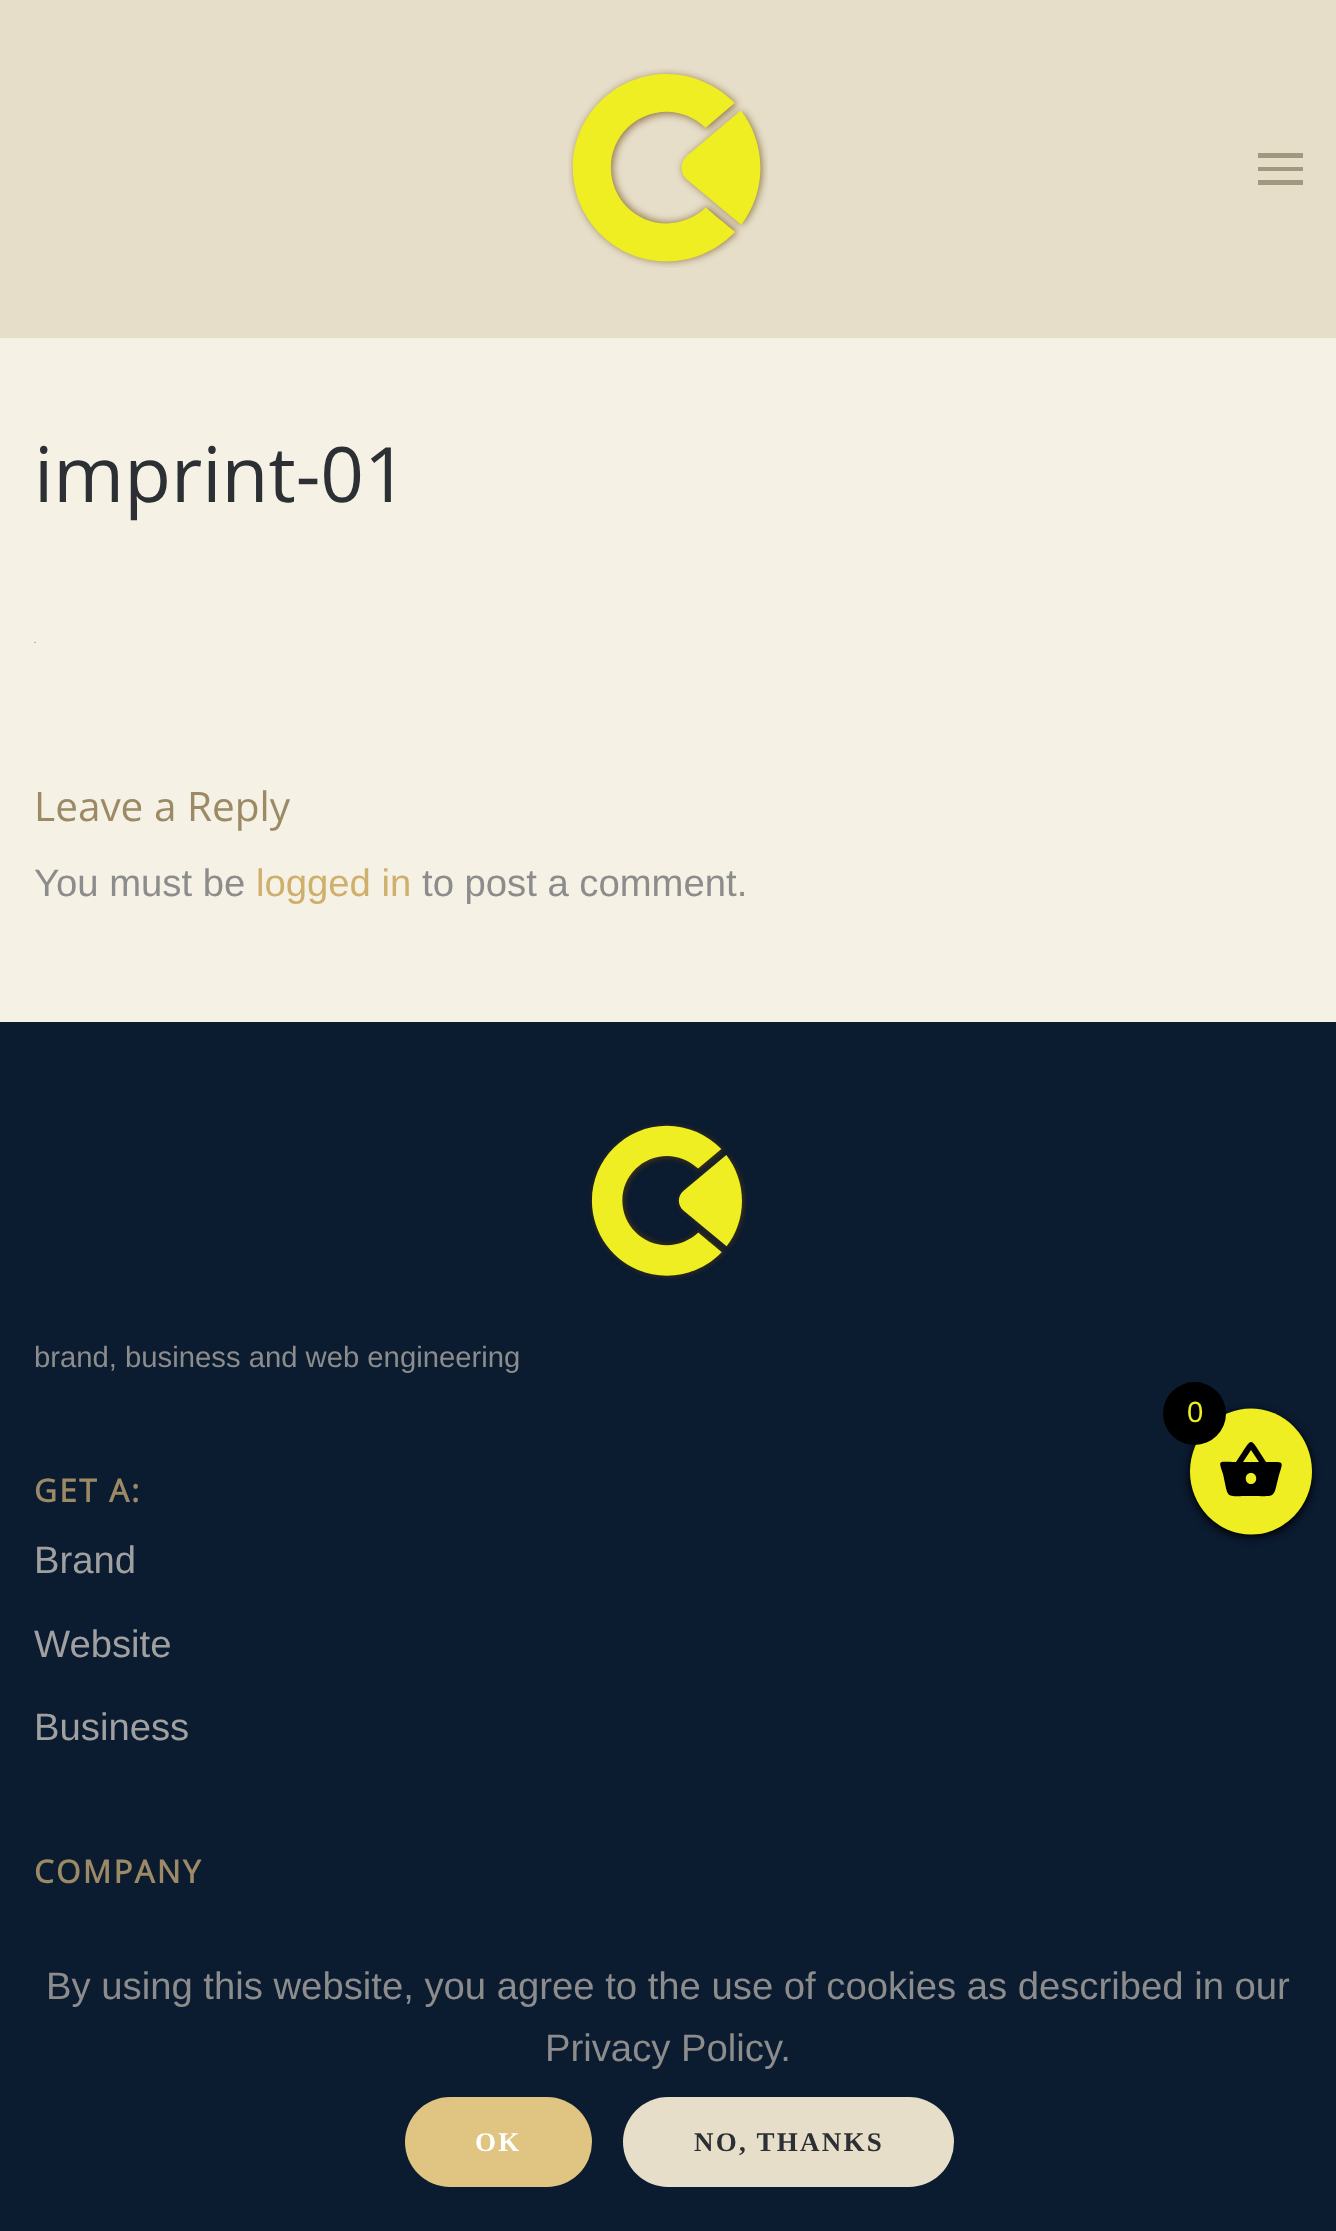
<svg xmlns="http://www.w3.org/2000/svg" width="1336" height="2231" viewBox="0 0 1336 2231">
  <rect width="100%" height="100%" fill="rgb(246,241,229)"/>
  <rect x="0" y="0" width="1336" height="338" fill="rgb(230,222,201)"/>
  <image x="568" y="68" width="200" height="200" href="pic1.png"/>
  <rect x="1258" y="153" width="45" height="5" fill="rgb(161,153,127)"/>
  <rect x="1258" y="167" width="45" height="4" fill="rgb(161,153,127)"/>
  <rect x="1258" y="180" width="45" height="5" fill="rgb(161,153,127)"/>
  <text x="34" y="502" font-family="Open Sans" font-size="76.5" fill="rgb(44,47,51)">imprint-01</text>
  <image x="34" y="641" width="2" height="2" href="pic2.png"/>
  <text x="34" y="821" font-family="Open Sans" font-size="40.5" fill="rgb(155,138,101)">Leave a Reply</text>
  <text x="34" y="896" font-family="Liberation Sans" font-size="38.25" fill="rgb(140,140,140)">You must be</text>
  <text x="256" y="896" font-family="Liberation Sans" font-size="38.25" fill="rgb(206,176,108)">logged in</text>
  <text x="422" y="896" font-family="Liberation Sans" font-size="38.25" fill="rgb(140,140,140)">to post a comment.</text>
  <rect x="0" y="1022" width="1336" height="1209" fill="rgb(11,27,48)"/>
  <image x="589" y="1122" width="158" height="158" href="pic3.png"/>
  <text x="34" y="1367" font-family="Liberation Sans" font-size="29.25" fill="rgb(140,140,140)">brand, business and web engineering</text>
  <text x="34" y="1502" font-family="Open Sans" font-size="31.5" font-weight="bold" letter-spacing="2.25" fill="rgb(155,138,101)">GET A:</text>
  <g font-family="Liberation Sans" font-size="38.25" fill="rgb(160,160,160)">
    <text x="34" y="1573">Brand</text>
    <text x="34" y="1657">Website</text>
    <text x="34" y="1740">Business</text>
  </g>
  <text x="34" y="1883" font-family="Open Sans" font-size="31.5" font-weight="bold" letter-spacing="2.25" fill="rgb(155,138,101)">COMPANY</text>
  <rect x="1190" y="1411" width="122" height="126" rx="61" fill="rgb(0,0,0)" filter="blur(4.5px)"/>
  <ellipse cx="1251" cy="1471.5" rx="61" ry="63" fill="rgb(238,238,34)"/>
  <circle cx="1194.5" cy="1413.5" r="31.5" fill="rgb(0,0,0)"/>
  <text x="1187" y="1422" font-family="Liberation Sans" font-size="29.25" fill="rgb(238,238,34)">0</text>
  <path d="M1251 1484C1258 1484 1258 1473 1251 1473C1244 1473 1244 1484 1251 1484ZM1243 1462H1259L1251 1450ZM1266 1462C1286 1462 1283 1460 1278 1479C1273 1499 1276 1496 1251 1496C1224 1496 1229 1500 1223 1474C1218 1459 1218 1462 1236 1462C1254 1436 1248 1435 1266 1462Z" fill="rgb(0,0,0)"/>
  <g font-family="Liberation Sans" font-size="38.25" fill="rgb(140,140,140)">
    <text x="46" y="1999">By using this website, you agree to the use of cookies as described in our</text>
    <text x="545" y="2061">Privacy Policy.</text>
  </g>
  <rect x="405" y="2097" width="187" height="90" rx="45" fill="rgb(223,196,130)"/>
  <text x="475" y="2151" font-family="Liberation Serif" font-size="27" font-weight="bold" letter-spacing="2.25" fill="rgb(255,255,255)">OK</text>
  <rect x="623" y="2097" width="331" height="90" rx="45" fill="rgb(230,222,201)"/>
  <text x="694" y="2151" font-family="Liberation Serif" font-size="27" font-weight="bold" letter-spacing="2.25" fill="rgb(44,47,51)">NO, THANKS</text>
</svg>
